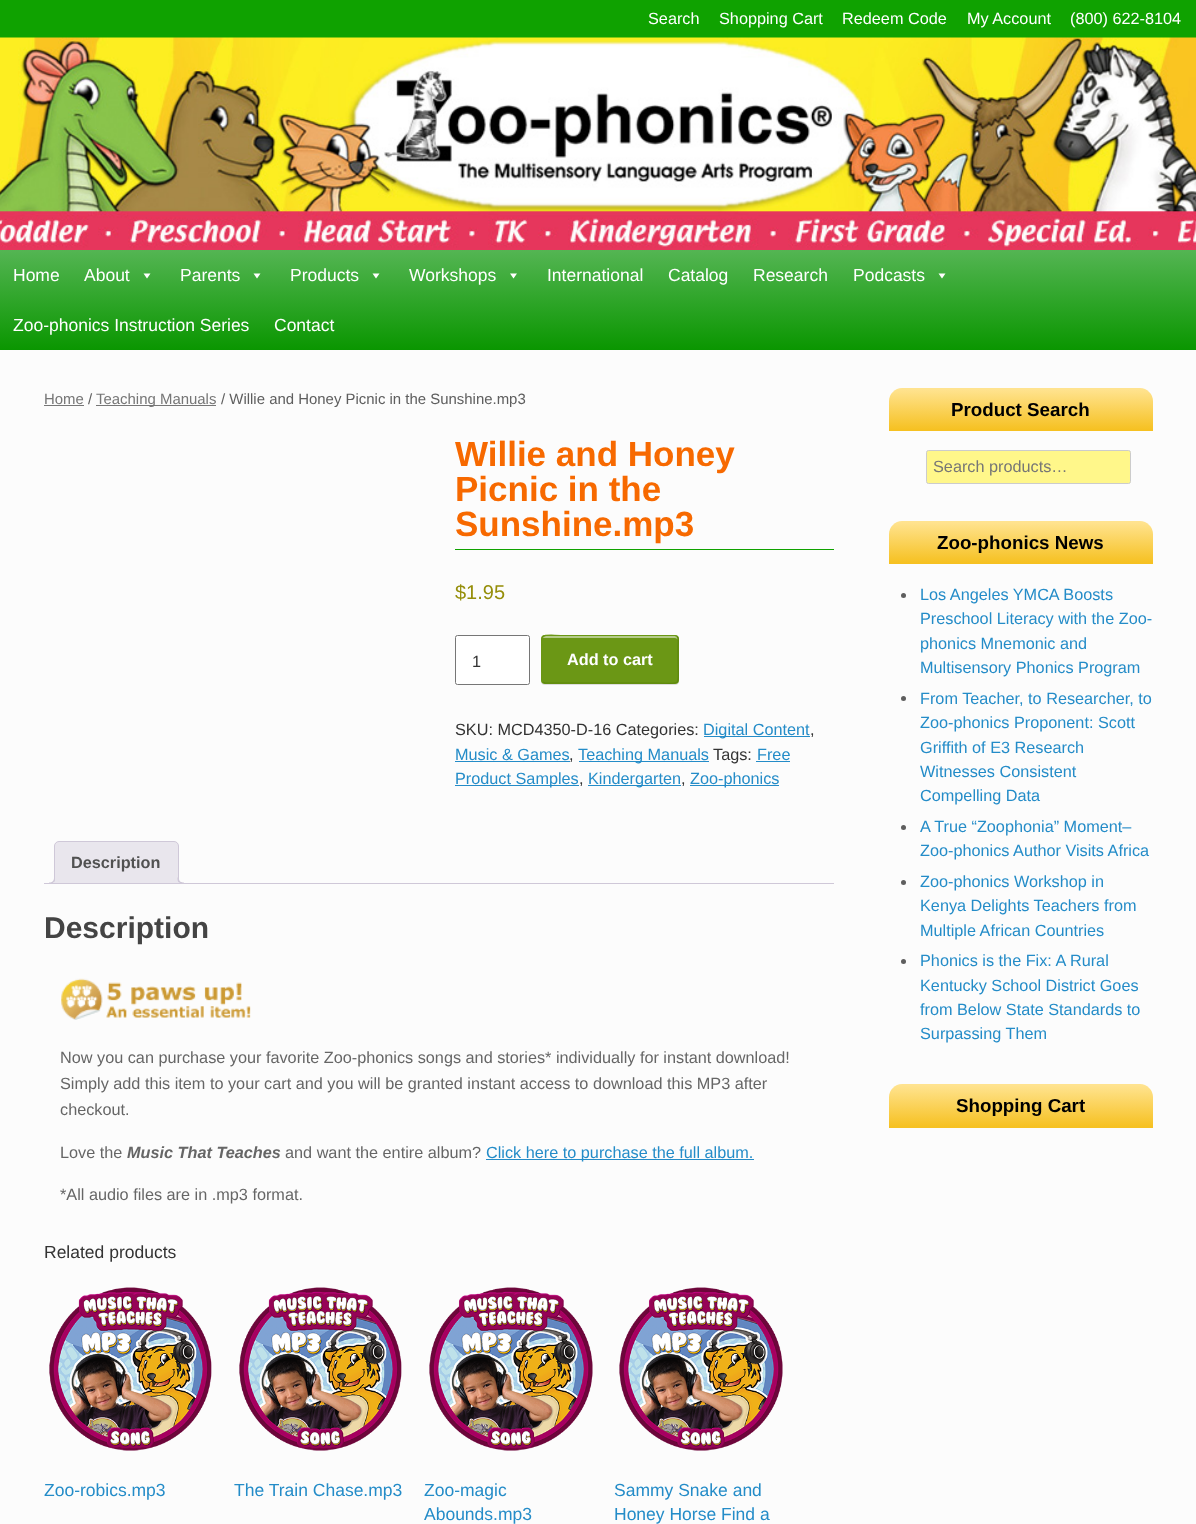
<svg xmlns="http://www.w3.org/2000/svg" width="1196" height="1524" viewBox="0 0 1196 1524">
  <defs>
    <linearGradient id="g1" gradientUnits="userSpaceOnUse" x1="598" y1="250" x2="598" y2="350"><stop offset="0" stop-color="rgb(84,181,83)"/><stop offset="1" stop-color="rgb(10,150,0)"/></linearGradient>
    <clipPath id="clip1"><rect x="44" y="841" width="790" height="43"/></clipPath>
    <linearGradient id="g2" gradientUnits="userSpaceOnUse" x1="1021" y1="388" x2="1021" y2="431"><stop offset="0.03" stop-color="rgb(255,227,143)"/><stop offset="0.97" stop-color="rgb(246,193,34)"/></linearGradient>
    <linearGradient id="g3" gradientUnits="userSpaceOnUse" x1="1021" y1="521" x2="1021" y2="564"><stop offset="0.03" stop-color="rgb(255,227,143)"/><stop offset="0.97" stop-color="rgb(246,193,34)"/></linearGradient>
    <linearGradient id="g4" gradientUnits="userSpaceOnUse" x1="1021" y1="1084" x2="1021" y2="1128"><stop offset="0.03" stop-color="rgb(255,227,143)"/><stop offset="0.97" stop-color="rgb(246,193,34)"/></linearGradient>
  </defs>
  <rect width="100%" height="100%" fill="rgb(15,162,0)"/>
  <g font-family="Liberation Sans" font-size="16.25" fill="rgb(255,255,255)">
    <text x="648" y="24">Search</text>
    <text x="719" y="24">Shopping Cart</text>
    <text x="842" y="24">Redeem Code</text>
    <text x="967" y="24">My Account</text>
    <text x="1070" y="24">(800) 622-8104</text>
  </g>
  <image x="0" y="37" width="1196" height="213" href="pic1.png"/>
  <rect x="0" y="250" width="1196" height="100" fill="url(#g1)"/>
  <g font-family="Liberation Sans" font-size="17.5" fill="rgb(255,255,255)">
    <text x="13" y="281">Home</text>
    <text x="84" y="281">About</text>
  </g>
  <path d="M150.5 273.5L147 278.5L143.5 273.5Z" fill="rgb(255,255,255)"/>
  <text x="180" y="281" font-family="Liberation Sans" font-size="17.5" fill="rgb(255,255,255)">Parents</text>
  <path d="M260.5 273.5L257 278.5L253.5 273.5Z" fill="rgb(255,255,255)"/>
  <text x="290" y="281" font-family="Liberation Sans" font-size="17.5" fill="rgb(255,255,255)">Products</text>
  <path d="M379.5 273.5L376 278.5L372.5 273.5Z" fill="rgb(255,255,255)"/>
  <text x="409" y="281" font-family="Liberation Sans" font-size="17.5" fill="rgb(255,255,255)">Workshops</text>
  <path d="M517 273.5L513.5 278.5L510 273.5Z" fill="rgb(255,255,255)"/>
  <g font-family="Liberation Sans" font-size="17.5" fill="rgb(255,255,255)">
    <text x="547" y="281">International</text>
    <text x="668" y="281">Catalog</text>
    <text x="753" y="281">Research</text>
    <text x="853" y="281">Podcasts</text>
  </g>
  <path d="M945.5 273.5L942 278.5L938.5 273.5Z" fill="rgb(255,255,255)"/>
  <g font-family="Liberation Sans" font-size="17.5" fill="rgb(255,255,255)">
    <text x="13" y="331">Zoo-phonics Instruction Series</text>
    <text x="274" y="331">Contact</text>
  </g>
  <rect x="0" y="350" width="1196" height="1174" fill="rgb(252,252,252)"/>
  <text x="44" y="404" font-family="Liberation Sans" font-size="14.95" fill="rgb(118,118,118)">Home</text>
  <rect x="44" y="405" width="40" height="1" fill="rgb(118,118,118)"/>
  <text x="88" y="404" font-family="Liberation Sans" font-size="14.95" fill="rgb(94,94,94)">/</text>
  <rect x="96" y="405" width="120" height="1" fill="rgb(118,118,118)"/>
  <text x="96" y="404" font-family="Liberation Sans" font-size="14.95" fill="rgb(118,118,118)">Teaching Manuals</text>
  <text x="221" y="404" font-family="Liberation Sans" font-size="14.95" fill="rgb(94,94,94)">/ Willie and Honey Picnic in the Sunshine.mp3</text>
  <rect x="455" y="549" width="379" height="1" fill="rgb(15,162,0)"/>
  <g font-family="Liberation Sans" font-size="35" font-weight="bold" fill="rgb(247,105,0)">
    <text>
      <tspan x="455" y="466">Willie and Honey</tspan>
      <tspan x="455" y="501">Picnic in the</tspan>
      <tspan x="455" y="536">Sunshine.mp3</tspan>
    </text>
  </g>
  <text x="455" y="599" font-family="Liberation Sans" font-size="20" fill="rgb(149,142,9)">$1.95</text>
  <rect x="455.5" y="635.5" width="74" height="49" rx="2" fill="rgb(255,255,255)" stroke="rgb(118,118,118)"/>
  <text x="472" y="667" font-family="Liberation Sans" font-size="16.25" fill="rgb(51,51,51)">1</text>
  <rect x="541" y="636" width="138" height="49" rx="4" fill="rgba(0,0,0,0.12)" filter="blur(0.5px)"/>
  <rect x="541" y="635" width="138" height="49" rx="4" fill="rgb(107,151,21)"/>
  <path d="M545 638H675C676 638 678 639 678 640V638C678 637 677 636 676 636H546C544 636 543 637 543 638Z" fill="rgb(181,203,138)"/>
  <path d="M677 636.5C679 638.5 678 644.5 678 645.5V659.5C678 688.5 683.5 683 653.5 683H545L543 682" fill="none" stroke="rgb(94,135,13)" stroke-width="1.2"/>
  <path d="M543 682C541 680 542 674 542 673V659.5C542 630 536.5 635.5 566.5 635.5H675L677 636.5" fill="none" stroke="rgb(107,151,21)" stroke-width="1.2"/>
  <text x="567" y="665" font-family="Liberation Sans" font-size="16.25" font-weight="bold" fill="rgb(255,255,255)">Add to cart</text>
  <text x="455" y="735" font-family="Liberation Sans" font-size="16.25" fill="rgb(51,51,51)">SKU: MCD4350-D-16 Categories:</text>
  <rect x="704" y="736" width="106" height="1" fill="rgb(36,140,200)"/>
  <text x="703" y="735" font-family="Liberation Sans" font-size="16.25" fill="rgb(36,140,200)">Digital Content</text>
  <text x="810" y="735" font-family="Liberation Sans" font-size="16.25" fill="rgb(51,51,51)">,</text>
  <text x="455" y="760" font-family="Liberation Sans" font-size="16.25" fill="rgb(36,140,200)">Music &amp; Games</text>
  <text x="569" y="760" font-family="Liberation Sans" font-size="16.25" fill="rgb(51,51,51)">,</text>
  <rect x="455" y="761" width="115" height="1" fill="rgb(36,140,200)"/>
  <rect x="579" y="761" width="130" height="1" fill="rgb(36,140,200)"/>
  <text x="578" y="760" font-family="Liberation Sans" font-size="16.25" fill="rgb(36,140,200)">Teaching Manuals</text>
  <text x="713" y="760" font-family="Liberation Sans" font-size="16.25" fill="rgb(51,51,51)">Tags:</text>
  <text x="757" y="760" font-family="Liberation Sans" font-size="16.25" fill="rgb(36,140,200)">Free</text>
  <rect x="756" y="761" width="34" height="1" fill="rgb(36,140,200)"/>
  <rect x="455" y="785" width="124" height="1" fill="rgb(36,140,200)"/>
  <text x="455" y="784" font-family="Liberation Sans" font-size="16.25" fill="rgb(36,140,200)">Product Samples</text>
  <text x="579" y="784" font-family="Liberation Sans" font-size="16.25" fill="rgb(51,51,51)">,</text>
  <rect x="588" y="785" width="93" height="1" fill="rgb(36,140,200)"/>
  <text x="588" y="784" font-family="Liberation Sans" font-size="16.25" fill="rgb(36,140,200)">Kindergarten</text>
  <text x="681" y="784" font-family="Liberation Sans" font-size="16.25" fill="rgb(51,51,51)">,</text>
  <rect x="690" y="785" width="89" height="1" fill="rgb(36,140,200)"/>
  <text x="690" y="784" font-family="Liberation Sans" font-size="16.25" fill="rgb(36,140,200)">Zoo-phonics</text>
  <path d="M59 841.5H174C176.5 841.5 178.5 843.5 178.5 846V883.5H54.5V846C54.5 843.5 56.5 841.5 59 841.5Z" fill="rgb(233,230,237)" stroke="rgb(207,200,216)"/>
  <text x="71" y="868" font-family="Liberation Sans" font-size="16.25" font-weight="bold" fill="rgb(81,81,81)">Description</text>
  <g clip-path="url(#clip1)">
    <path d="M51 883.5V886C55.5 886 58 885 58 880H55C54.5 882 53 883.5 51 883.5Z" fill="rgb(233,230,237)"/>
  </g>
  <path d="M49 877.5H55C55 882 53 884 49 884ZM49 877.5H54C54 881 52.5 882.5 49 882.5Z" fill="rgb(207,200,216)" fill-rule="evenodd"/>
  <g clip-path="url(#clip1)">
    <path d="M175 880C175 884 177 886 181 886V883.5C179.5 883 178 881.5 177.5 880Z" fill="rgb(233,230,237)"/>
  </g>
  <path d="M177.5 877.5H184V884C180.5 884 177.5 882.5 177.5 879ZM179 877.5H184V882.5C181.5 882.5 179 881.5 179 879Z" fill="rgb(207,200,216)" fill-rule="evenodd"/>
  <rect x="44" y="883" width="790" height="1" fill="rgb(207,200,216)"/>
  <text x="44" y="938" font-family="Liberation Sans" font-size="30" font-weight="bold" fill="rgb(68,68,68)">Description</text>
  <image x="61" y="978" width="190" height="42" href="pic2.png"/>
  <g font-family="Liberation Sans" font-size="16.25" fill="rgb(102,102,102)">
    <text>
      <tspan x="60" y="1063">Now you can purchase your favorite Zoo-phonics songs and stories* individually for instant download!</tspan>
      <tspan x="60" y="1089">Simply add this item to your cart and you will be granted instant access to download this MP3 after</tspan>
      <tspan x="60" y="1115">checkout.</tspan>
    </text>
    <text x="60" y="1158">Love the</text>
  </g>
  <text x="127" y="1158" font-family="Liberation Sans" font-size="16.25" font-weight="bold" font-style="italic" fill="rgb(102,102,102)">Music That Teaches</text>
  <text x="285" y="1158" font-family="Liberation Sans" font-size="16.25" fill="rgb(102,102,102)">and want the entire album?</text>
  <rect x="486" y="1159" width="268" height="1" fill="rgb(36,140,200)"/>
  <text x="486" y="1158" font-family="Liberation Sans" font-size="16.25" fill="rgb(36,140,200)">Click here to purchase the full album.</text>
  <text x="60" y="1200" font-family="Liberation Sans" font-size="16.25" fill="rgb(102,102,102)">*All audio files are in .mp3 format.</text>
  <text x="44" y="1258" font-family="Liberation Sans" font-size="17.5" fill="rgb(51,51,51)">Related products</text>
  <image x="49" y="1287" width="163" height="164" href="pic3.png"/>
  <text x="44" y="1496" font-family="Liberation Sans" font-size="17.5" fill="rgb(36,140,200)">Zoo-robics.mp3</text>
  <image x="239" y="1287" width="163" height="164" href="pic3.png"/>
  <text x="234" y="1496" font-family="Liberation Sans" font-size="17.5" fill="rgb(36,140,200)">The Train Chase.mp3</text>
  <image x="429" y="1287" width="164" height="164" href="pic4.png"/>
  <g font-family="Liberation Sans" font-size="17.5" fill="rgb(36,140,200)">
    <text>
      <tspan x="424" y="1496">Zoo-magic</tspan>
      <tspan x="424" y="1520">Abounds.mp3</tspan>
    </text>
  </g>
  <image x="619" y="1287" width="164" height="164" href="pic5.png"/>
  <g font-family="Liberation Sans" font-size="17.5" fill="rgb(36,140,200)">
    <text>
      <tspan x="614" y="1496">Sammy Snake and</tspan>
      <tspan x="614" y="1520">Honey Horse Find a</tspan>
    </text>
  </g>
  <path d="M902 388H1140C1147 388 1153 394 1153 401V431H889V401C889 394 895 388 902 388Z" fill="url(#g2)"/>
  <text x="951" y="416" font-family="Liberation Sans" font-size="18.75" font-weight="bold" fill="rgb(0,0,0)">Product Search</text>
  <rect x="926.5" y="450.5" width="204" height="33" rx="2" fill="rgb(255,247,138)" stroke="rgb(204,204,204)"/>
  <text x="933" y="472" font-family="Liberation Sans" font-size="16.25" fill="rgb(118,118,118)">Search products…</text>
  <path d="M902 521H1140C1147 521 1153 527 1153 534V564H889V534C889 527 895 521 902 521Z" fill="url(#g3)"/>
  <text x="937" y="549" font-family="Liberation Sans" font-size="18.75" font-weight="bold" fill="rgb(0,0,0)">Zoo-phonics News</text>
  <circle cx="903.5" cy="595.5" r="2.5" fill="rgb(94,94,94)"/>
  <g font-family="Liberation Sans" font-size="16.25" fill="rgb(36,140,200)">
    <text>
      <tspan x="920" y="600">Los Angeles YMCA Boosts</tspan>
      <tspan x="920" y="624">Preschool Literacy with the Zoo-</tspan>
      <tspan x="920" y="649">phonics Mnemonic and</tspan>
      <tspan x="920" y="673">Multisensory Phonics Program</tspan>
    </text>
  </g>
  <circle cx="903.5" cy="698.5" r="2.5" fill="rgb(94,94,94)"/>
  <g font-family="Liberation Sans" font-size="16.25" fill="rgb(36,140,200)">
    <text>
      <tspan x="920" y="704">From Teacher, to Researcher, to</tspan>
      <tspan x="920" y="728">Zoo-phonics Proponent: Scott</tspan>
      <tspan x="920" y="753">Griffith of E3 Research</tspan>
      <tspan x="920" y="777">Witnesses Consistent</tspan>
      <tspan x="920" y="801">Compelling Data</tspan>
    </text>
  </g>
  <circle cx="903.5" cy="827.5" r="2.5" fill="rgb(94,94,94)"/>
  <g font-family="Liberation Sans" font-size="16.25" fill="rgb(36,140,200)">
    <text>
      <tspan x="920" y="832">A True “Zoophonia” Moment–</tspan>
      <tspan x="920" y="856">Zoo-phonics Author Visits Africa</tspan>
    </text>
  </g>
  <circle cx="903.5" cy="882.5" r="2.5" fill="rgb(94,94,94)"/>
  <g font-family="Liberation Sans" font-size="16.25" fill="rgb(36,140,200)">
    <text>
      <tspan x="920" y="887">Zoo-phonics Workshop in</tspan>
      <tspan x="920" y="911">Kenya Delights Teachers from</tspan>
      <tspan x="920" y="936">Multiple African Countries</tspan>
    </text>
  </g>
  <circle cx="903.5" cy="961.5" r="2.5" fill="rgb(94,94,94)"/>
  <g font-family="Liberation Sans" font-size="16.25" fill="rgb(36,140,200)">
    <text>
      <tspan x="920" y="966">Phonics is the Fix: A Rural</tspan>
      <tspan x="920" y="991">Kentucky School District Goes</tspan>
      <tspan x="920" y="1015">from Below State Standards to</tspan>
      <tspan x="920" y="1039">Surpassing Them</tspan>
    </text>
  </g>
  <path d="M902 1084H1140C1147 1084 1153 1090 1153 1097V1128H889V1097C889 1090 895 1084 902 1084Z" fill="url(#g4)"/>
  <text x="956" y="1112" font-family="Liberation Sans" font-size="18.75" font-weight="bold" fill="rgb(0,0,0)">Shopping Cart</text>
</svg>
